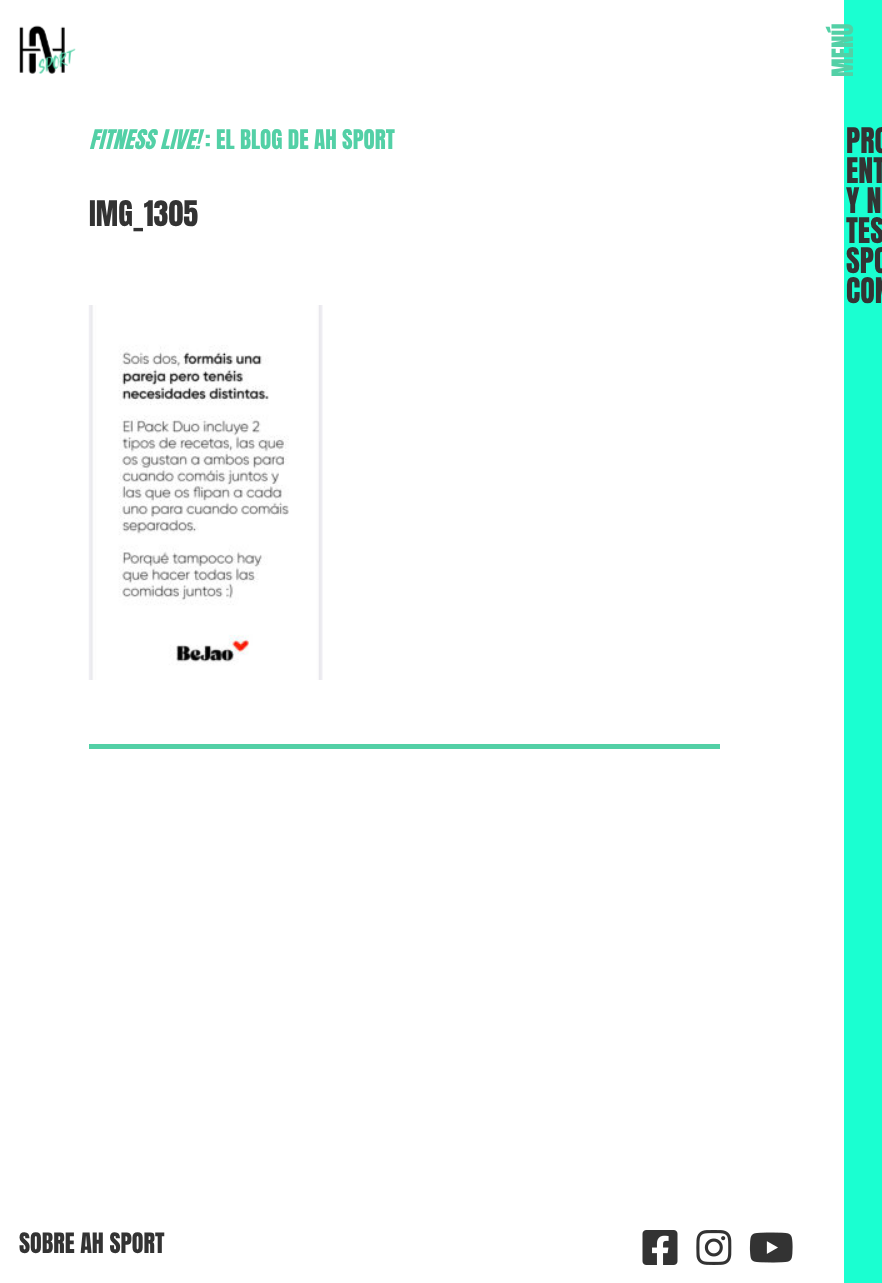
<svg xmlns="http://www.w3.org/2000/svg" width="882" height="1283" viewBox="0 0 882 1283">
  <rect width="100%" height="100%" fill="rgb(255,255,255)"/>
  <image x="19" y="25" width="57" height="49" href="pic1.png"/>
  <rect x="844" y="0" width="38" height="1283" fill="rgb(26,255,209)"/>
  <text x="853" y="77" transform="rotate(-90 853 77)" font-family="Anton" font-size="25" fill="rgb(83,208,166)">MENÚ</text>
  <text x="89" y="149" font-family="Anton" font-size="23" font-style="italic" fill="rgb(83,208,166)">FITNESS LIVE!</text>
  <text x="205" y="149" font-family="Anton" font-size="23" fill="rgb(83,208,166)">: EL BLOG DE AH SPORT</text>
  <rect x="89" y="744" width="631" height="5" fill="rgb(83,208,166)"/>
  <text x="89" y="226" font-family="Anton" font-size="30" fill="rgb(51,51,51)">IMG_1305</text>
  <image x="88" y="305" width="235" height="375" href="pic2.png"/>
  <g font-family="Anton" font-size="30" fill="rgb(51,51,51)">
    <text>
      <tspan x="846" y="153">PRO</tspan>
      <tspan x="846" y="183">ENT</tspan>
      <tspan x="846" y="213">Y N</tspan>
      <tspan x="846" y="243">TES</tspan>
      <tspan x="846" y="273">SPO</tspan>
      <tspan x="846" y="303">CON</tspan>
    </text>
  </g>
  <text x="19" y="1253" font-family="Anton" font-size="24" fill="rgb(51,51,51)">SOBRE AH SPORT</text>
  <image x="642" y="1230" width="36" height="35" href="pic3.png"/>
  <image x="696" y="1230" width="36" height="35" href="pic4.png"/>
  <image x="749" y="1232" width="44" height="31" href="pic5.png"/>
</svg>
